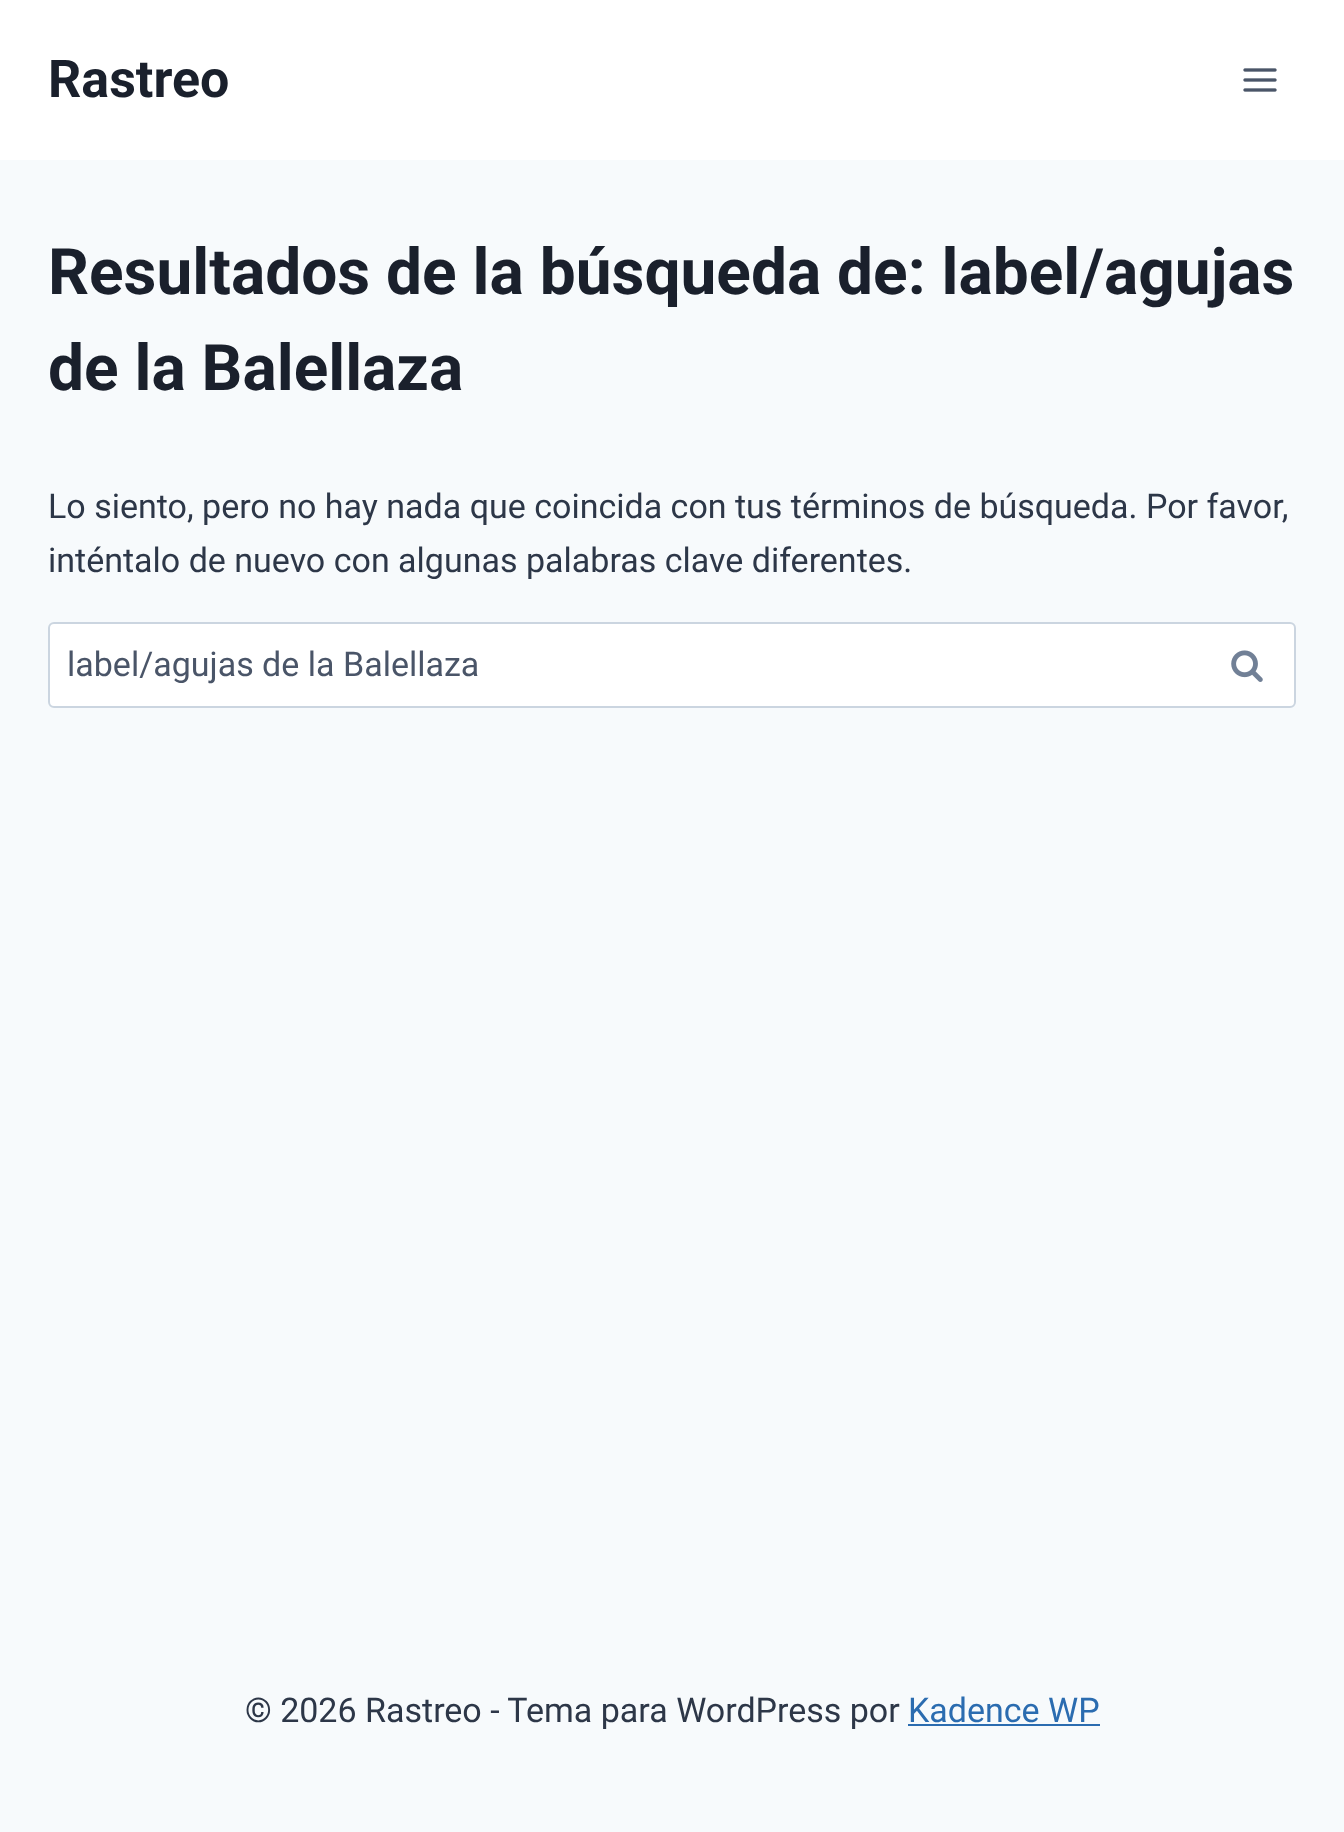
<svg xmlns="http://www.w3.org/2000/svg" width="1344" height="1832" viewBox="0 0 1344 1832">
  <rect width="100%" height="100%" fill="rgb(247,250,252)"/>
  <rect x="0" y="0" width="1344" height="160" fill="rgb(255,255,255)"/>
  <text x="48" y="97" font-family="Roboto" font-size="52" font-weight="bold" fill="rgb(26,32,44)">Rastreo</text>
  <image x="1243" y="68" width="34" height="24" href="pic1.png"/>
  <g font-family="Roboto" font-size="64" font-weight="bold" fill="rgb(26,32,44)">
    <text>
      <tspan x="48" y="294">Resultados de la búsqueda de: label/agujas</tspan>
      <tspan x="48" y="390">de la Balellaza</tspan>
    </text>
  </g>
  <g font-family="Roboto" font-size="34" fill="rgb(45,55,72)">
    <text>
      <tspan x="48" y="518">Lo siento, pero no hay nada que coincida con tus términos de búsqueda. Por favor,</tspan>
      <tspan x="48" y="572">inténtalo de nuevo con algunas palabras clave diferentes.</tspan>
    </text>
  </g>
  <rect x="49" y="623" width="1246" height="84" rx="5" fill="rgb(255,255,255)" stroke="rgb(203,213,224)" stroke-width="2"/>
  <text x="67" y="676" font-family="Roboto" font-size="34" fill="rgb(74,85,104)">label/agujas de la Balellaza</text>
  <image x="1231" y="650" width="32" height="32" href="pic2.png"/>
  <text x="245" y="1722" font-family="Roboto" font-size="34" fill="rgb(45,55,72)">© 2026 Rastreo - Tema para WordPress por</text>
  <text x="908" y="1722" font-family="Roboto" font-size="34" fill="rgb(43,108,176)">Kadence WP</text>
  <rect x="908" y="1724" width="192" height="2" fill="rgb(43,108,176)"/>
</svg>
